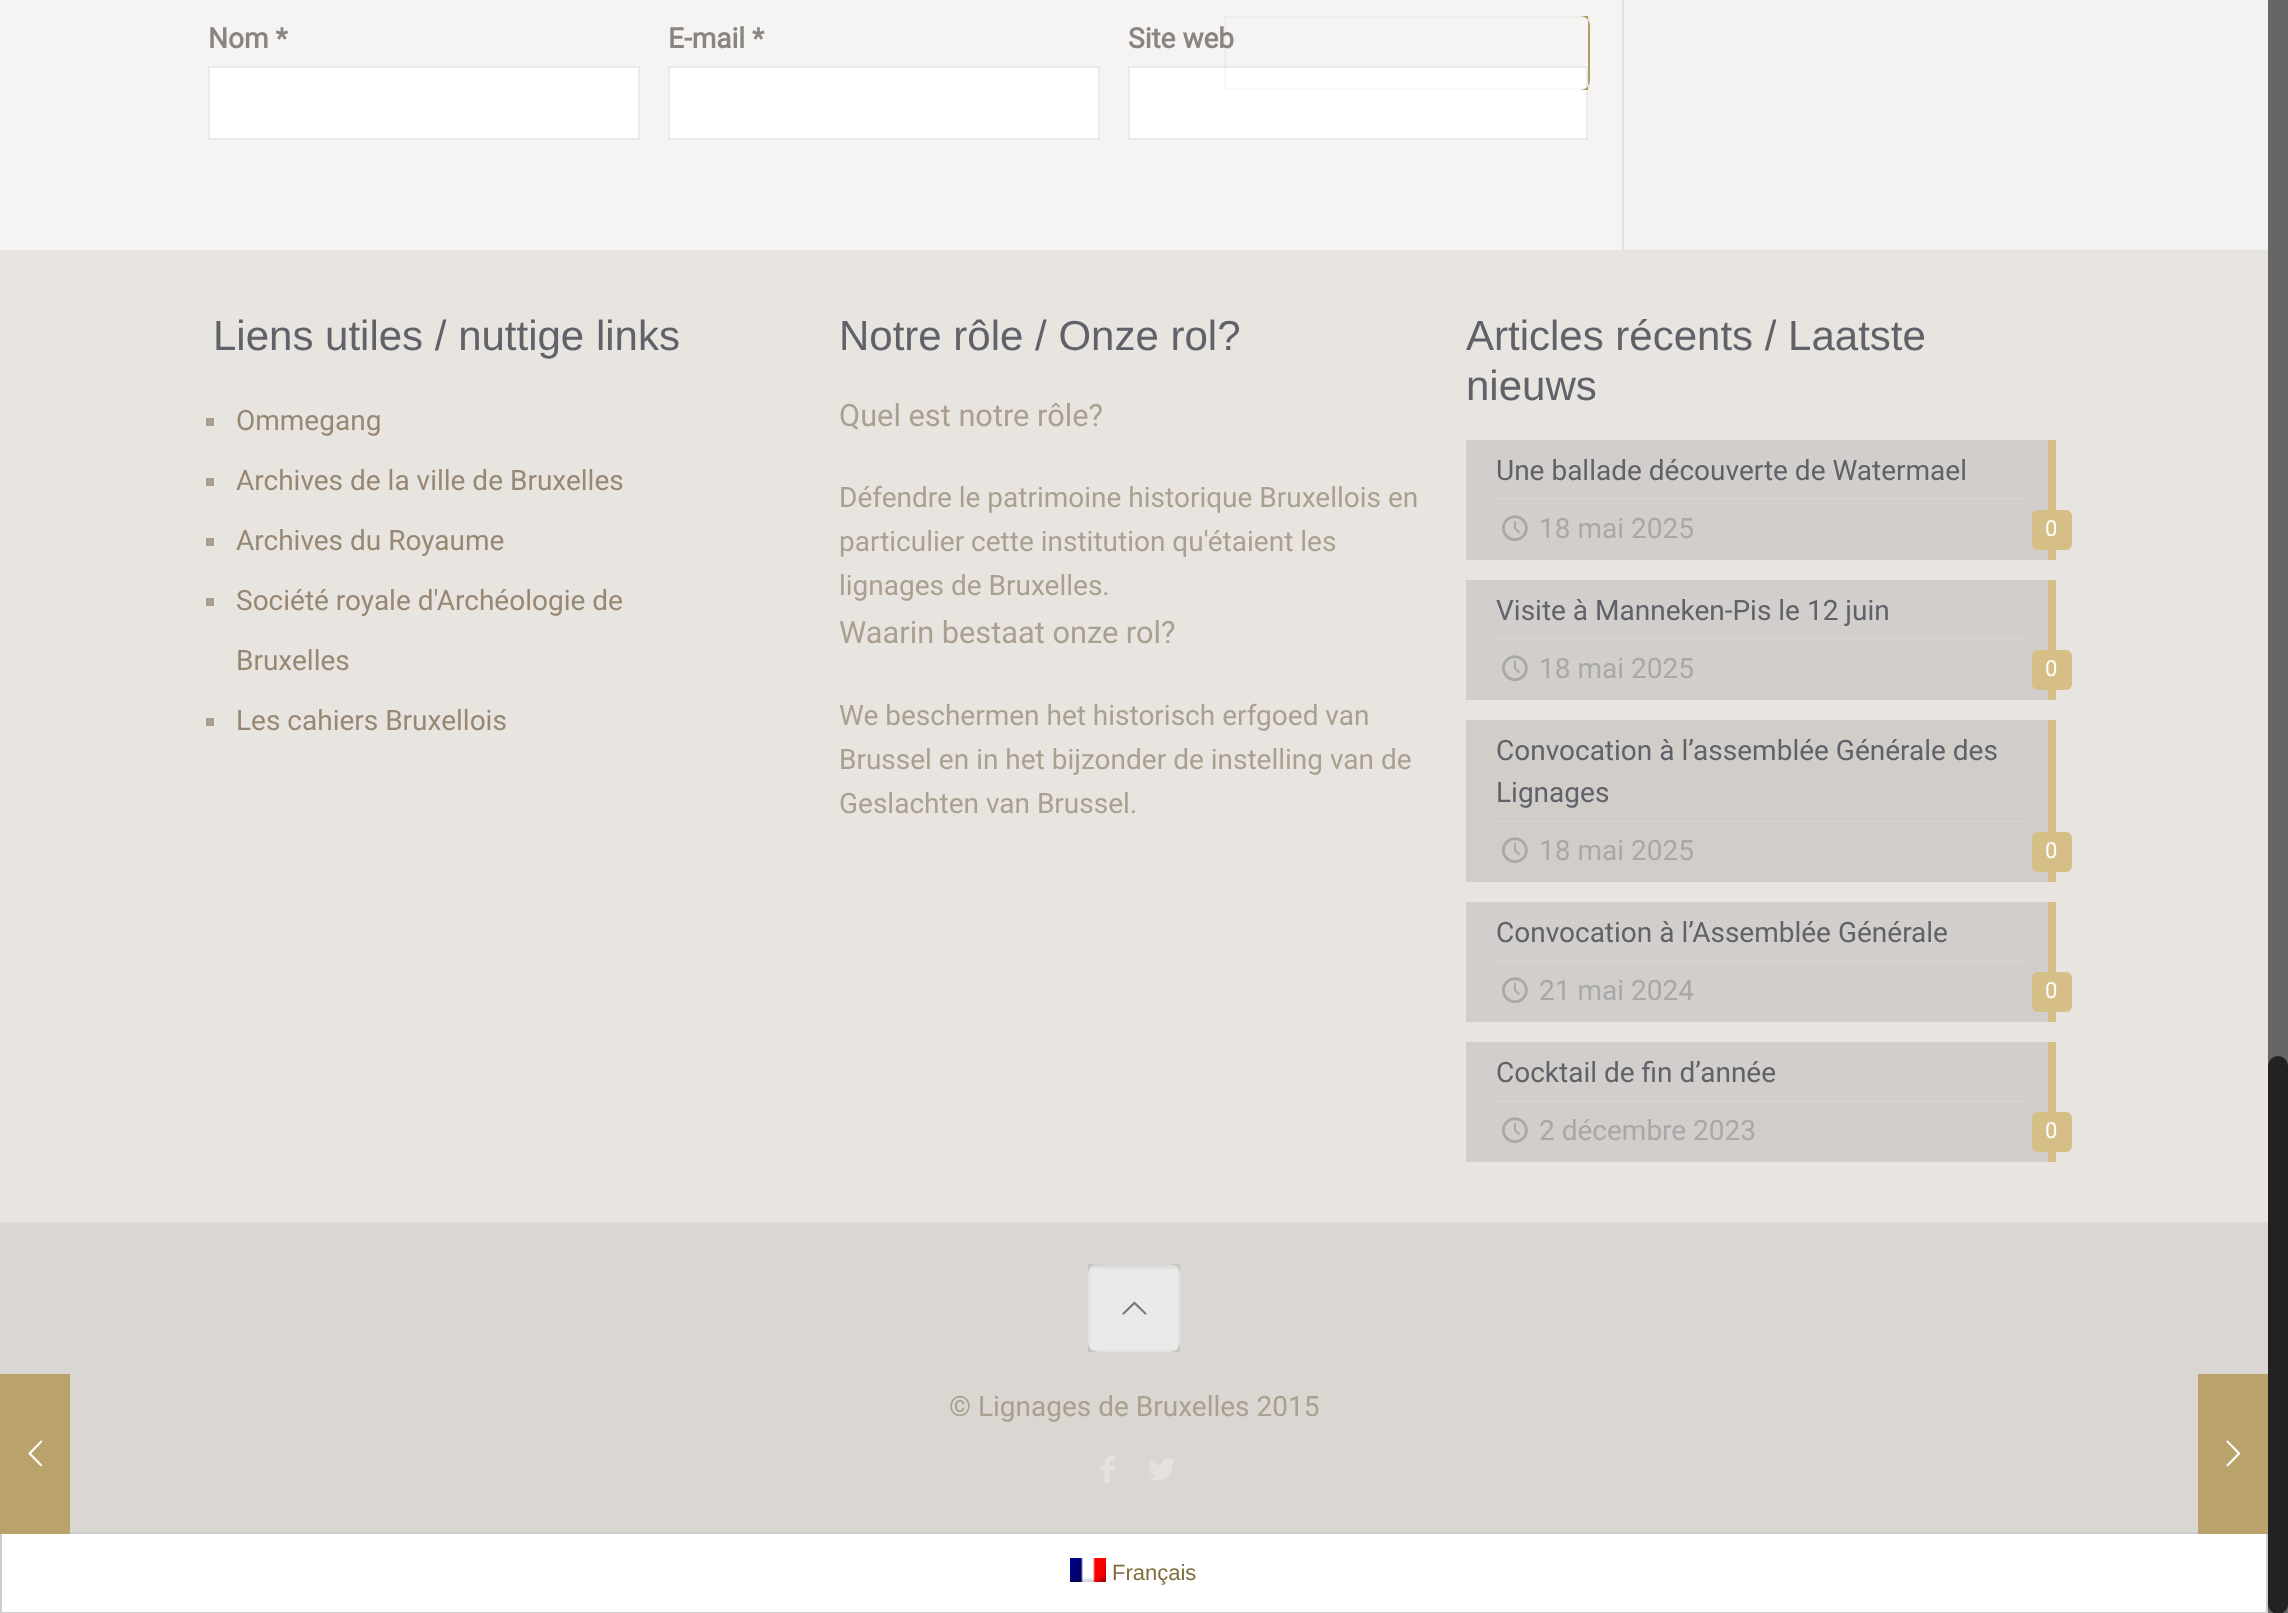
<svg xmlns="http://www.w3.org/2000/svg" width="2288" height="1613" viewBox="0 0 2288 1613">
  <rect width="100%" height="100%" fill="rgb(245,244,243)"/>
  <text x="208" y="48" font-family="Roboto" font-size="28" font-weight="bold" fill="rgb(137,133,131)">Nom *</text>
  <rect x="209" y="67" width="430" height="72" fill="rgb(255,255,255)" stroke="rgb(235,235,235)" stroke-width="2"/>
  <text x="668" y="48" font-family="Roboto" font-size="28" font-weight="bold" fill="rgb(137,133,131)">E-mail *</text>
  <rect x="669" y="67" width="430" height="72" fill="rgb(255,255,255)" stroke="rgb(235,235,235)" stroke-width="2"/>
  <text x="1128" y="48" font-family="Roboto" font-size="28" font-weight="bold" fill="rgb(137,133,131)">Site web</text>
  <rect x="1129" y="67" width="458" height="72" fill="rgb(255,255,255)" stroke="rgb(235,235,235)" stroke-width="2"/>
  <path d="M1588 16H1580C1585.5 16 1590 20.5 1590 26V80C1590 85.5 1585.5 90 1580 90H1588Z" fill="rgb(185,162,107)"/>
  <rect x="1225" y="17" width="364" height="72" fill="none" stroke="rgba(0,0,0,0.03)" stroke-width="2"/>
  <rect x="1622" y="0" width="2" height="250" fill="rgb(225,224,224)"/>
  <rect x="1624" y="0" width="644" height="250" fill="rgb(242,242,241)"/>
  <rect x="0" y="250" width="2268" height="972" fill="rgb(232,229,225)"/>
  <text x="213" y="350" font-family="Liberation Sans" font-size="42" fill="rgb(97,97,105)">Liens utiles / nuttige links</text>
  <rect x="206" y="418" width="8" height="8" fill="rgb(171,159,144)"/>
  <text x="236" y="430" font-family="Roboto" font-size="28" fill="rgb(152,135,115)">Ommegang</text>
  <rect x="206" y="478" width="8" height="8" fill="rgb(171,159,144)"/>
  <text x="236" y="490" font-family="Roboto" font-size="28" fill="rgb(152,135,115)">Archives de la ville de Bruxelles</text>
  <rect x="206" y="538" width="8" height="8" fill="rgb(171,159,144)"/>
  <text x="236" y="550" font-family="Roboto" font-size="28" fill="rgb(152,135,115)">Archives du Royaume</text>
  <rect x="206" y="598" width="8" height="8" fill="rgb(171,159,144)"/>
  <g font-family="Roboto" font-size="28" fill="rgb(152,135,115)">
    <text x="236" y="610">Société royale d'Archéologie de</text>
    <text x="236" y="670">Bruxelles</text>
  </g>
  <rect x="206" y="718" width="8" height="8" fill="rgb(171,159,144)"/>
  <text x="236" y="730" font-family="Roboto" font-size="28" fill="rgb(152,135,115)">Les cahiers Bruxellois</text>
  <text x="839" y="350" font-family="Liberation Sans" font-size="42" fill="rgb(97,97,105)">Notre rôle / Onze rol?</text>
  <text x="839" y="426" font-family="Roboto" font-size="30.75" fill="rgb(171,159,144)">Quel est notre rôle?</text>
  <g font-family="Roboto" font-size="28" fill="rgb(171,159,144)">
    <text>
      <tspan x="839" y="507">Défendre le patrimoine historique Bruxellois en</tspan>
      <tspan x="839" y="551">particulier cette institution qu'étaient les</tspan>
      <tspan x="839" y="595">lignages de Bruxelles.</tspan>
    </text>
  </g>
  <text x="839" y="643" font-family="Roboto" font-size="30.75" fill="rgb(171,159,144)">Waarin bestaat onze rol?</text>
  <g font-family="Roboto" font-size="28" fill="rgb(171,159,144)">
    <text>
      <tspan x="839" y="725">We beschermen het historisch erfgoed van</tspan>
      <tspan x="839" y="769">Brussel en in het bijzonder de instelling van de</tspan>
      <tspan x="839" y="813">Geslachten van Brussel.</tspan>
    </text>
  </g>
  <g font-family="Liberation Sans" font-size="42" fill="rgb(97,97,105)">
    <text>
      <tspan x="1466" y="350">Articles récents / Laatste</tspan>
      <tspan x="1466" y="400">nieuws</tspan>
    </text>
  </g>
  <rect x="1466" y="440" width="582" height="120" fill="rgb(209,206,203)"/>
  <rect x="1496" y="498" width="530" height="2" fill="rgb(213,210,207)"/>
  <text x="1496" y="480" font-family="Roboto" font-size="28" fill="rgb(97,97,105)">Une ballade découverte de Watermael</text>
  <rect x="2048" y="440" width="8" height="120" fill="rgb(214,191,134)"/>
  <image x="1502" y="515" width="26" height="26" href="pic1.png"/>
  <text x="1539" y="538" font-family="Roboto" font-size="28" fill="rgb(168,168,168)">18 mai 2025</text>
  <rect x="2032" y="510" width="40" height="40" rx="6" fill="rgb(214,191,134)"/>
  <text x="2045" y="536" font-family="Roboto" font-size="22" fill="rgb(255,255,255)">0</text>
  <rect x="1466" y="580" width="582" height="120" fill="rgb(209,206,203)"/>
  <rect x="1496" y="638" width="530" height="2" fill="rgb(213,210,207)"/>
  <text x="1496" y="620" font-family="Roboto" font-size="28" fill="rgb(97,97,105)">Visite à Manneken-Pis le 12 juin</text>
  <rect x="2048" y="580" width="8" height="120" fill="rgb(214,191,134)"/>
  <image x="1502" y="655" width="26" height="26" href="pic1.png"/>
  <text x="1539" y="678" font-family="Roboto" font-size="28" fill="rgb(168,168,168)">18 mai 2025</text>
  <rect x="2032" y="650" width="40" height="40" rx="6" fill="rgb(214,191,134)"/>
  <text x="2045" y="676" font-family="Roboto" font-size="22" fill="rgb(255,255,255)">0</text>
  <rect x="1466" y="720" width="582" height="162" fill="rgb(209,206,202)"/>
  <rect x="1496" y="820" width="530" height="2" fill="rgb(213,210,206)"/>
  <g font-family="Roboto" font-size="28" fill="rgb(97,97,105)">
    <text>
      <tspan x="1496" y="760">Convocation à l’assemblée Générale des</tspan>
      <tspan x="1496" y="802">Lignages</tspan>
    </text>
  </g>
  <rect x="2048" y="720" width="8" height="162" fill="rgb(214,191,134)"/>
  <image x="1502" y="837" width="26" height="26" href="pic2.png"/>
  <text x="1539" y="860" font-family="Roboto" font-size="28" fill="rgb(168,168,168)">18 mai 2025</text>
  <rect x="2032" y="832" width="40" height="40" rx="6" fill="rgb(214,191,134)"/>
  <text x="2045" y="858" font-family="Roboto" font-size="22" fill="rgb(255,255,255)">0</text>
  <rect x="1466" y="902" width="582" height="120" fill="rgb(209,206,203)"/>
  <rect x="1496" y="960" width="530" height="2" fill="rgb(213,210,207)"/>
  <text x="1496" y="942" font-family="Roboto" font-size="28" fill="rgb(97,97,105)">Convocation à l’Assemblée Générale</text>
  <rect x="2048" y="902" width="8" height="120" fill="rgb(214,191,134)"/>
  <image x="1502" y="977" width="26" height="26" href="pic1.png"/>
  <text x="1539" y="1000" font-family="Roboto" font-size="28" fill="rgb(168,168,168)">21 mai 2024</text>
  <rect x="2032" y="972" width="40" height="40" rx="6" fill="rgb(214,191,134)"/>
  <text x="2045" y="998" font-family="Roboto" font-size="22" fill="rgb(255,255,255)">0</text>
  <rect x="1466" y="1042" width="582" height="120" fill="rgb(209,206,203)"/>
  <rect x="1496" y="1100" width="530" height="2" fill="rgb(213,210,207)"/>
  <text x="1496" y="1082" font-family="Roboto" font-size="28" fill="rgb(97,97,105)">Cocktail de fin d’année</text>
  <rect x="2048" y="1042" width="8" height="120" fill="rgb(214,191,134)"/>
  <image x="1502" y="1117" width="26" height="26" href="pic1.png"/>
  <text x="1539" y="1140" font-family="Roboto" font-size="28" fill="rgb(168,168,168)">2 décembre 2023</text>
  <rect x="2032" y="1112" width="40" height="40" rx="6" fill="rgb(214,191,134)"/>
  <text x="2045" y="1138" font-family="Roboto" font-size="22" fill="rgb(255,255,255)">0</text>
  <rect x="0" y="1224" width="2268" height="308" fill="rgb(218,214,209)"/>
  <rect x="0" y="1222" width="2268" height="2" fill="rgb(222,218,214)"/>
  <rect x="1088" y="1264" width="92" height="88" rx="10" fill="rgb(247,247,247)"/>
  <image x="1090" y="1264" width="88" height="5" href="pic3.png"/>
  <rect x="1089" y="1265" width="90" height="86" fill="none" stroke="rgba(0,0,0,0.03)" stroke-width="2"/>
  <rect x="1088" y="1264" width="92" height="88" fill="rgba(0,0,0,0.05)"/>
  <image x="1122" y="1301" width="25" height="14" href="pic4.png"/>
  <text x="949" y="1416" font-family="Roboto" font-size="28" fill="rgb(171,159,144)">© Lignages de Bruxelles 2015</text>
  <image x="1100" y="1456" width="15" height="27" href="pic5.png"/>
  <image x="1149" y="1458" width="26" height="23" href="pic6.png"/>
  <rect x="2268" y="0" width="20" height="1613" fill="rgb(102,102,102)"/>
  <rect x="2268" y="1056" width="20" height="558" rx="10" fill="rgb(34,34,34)"/>
  <rect x="1" y="1533" width="2266" height="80" fill="rgb(255,255,255)" stroke="rgb(205,205,205)" stroke-width="2"/>
  <rect x="0" y="1374" width="70" height="160" fill="rgb(185,162,107)"/>
  <image x="28" y="1440" width="15" height="27" href="pic7.png"/>
  <rect x="2198" y="1374" width="70" height="160" fill="rgb(185,162,107)"/>
  <image x="2226" y="1440" width="15" height="27" href="pic8.png"/>
  <image x="1070" y="1558" width="36" height="24" href="pic9.png"/>
  <text x="1112" y="1580" font-family="Liberation Sans" font-size="22" fill="rgb(128,109,60)">Français</text>
</svg>
